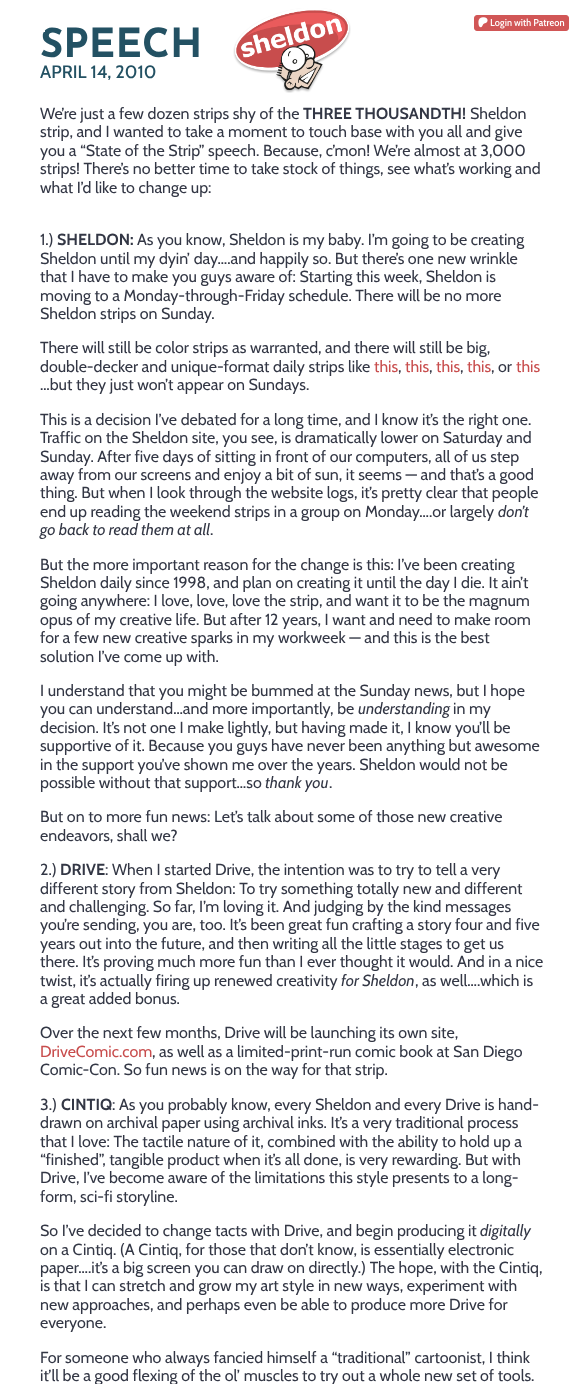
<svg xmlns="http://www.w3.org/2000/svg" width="584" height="1384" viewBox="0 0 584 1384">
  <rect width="100%" height="100%" fill="rgb(255,255,255)"/>
  <text x="40" y="57" font-family="Reem Kufi Fun" font-size="40" font-weight="bold" fill="rgb(35,81,99)">SPEECH</text>
  <rect x="43" y="30" width="2" height="2" fill="rgb(255,255,255)"/>
  <image x="233" y="8" width="118" height="85" href="pic1.png"/>
  <rect x="474.5" y="15.5" width="94" height="15" rx="2.5" fill="rgb(209,86,86)" stroke="rgb(209,86,86)"/>
  <image x="478" y="17" width="10" height="11" href="pic2.png"/>
  <image x="490" y="19" width="22" height="10" href="pic3.png"/>
  <image x="514" y="18" width="51" height="9" href="pic4.png"/>
  <text x="40" y="78" font-family="Cabin" font-size="18" font-weight="500" fill="rgb(35,81,99)">APRIL 14, 2010</text>
  <text x="40" y="119" font-family="Cabin" font-size="16" fill="rgb(51,55,69)">We’re just a few dozen strips shy of the</text>
  <text x="303" y="119" font-family="Cabin" font-size="16" font-weight="bold" fill="rgb(51,55,69)">THREE THOUSANDTH!</text>
  <g font-family="Cabin" font-size="16" fill="rgb(51,55,69)">
    <text x="470" y="119">Sheldon</text>
    <text>
      <tspan x="40" y="137">strip, and I wanted to take a moment to touch base with you all and give</tspan>
      <tspan x="40" y="156">you a “State of the Strip” speech. Because, c’mon! We’re almost at 3,000</tspan>
      <tspan x="40" y="174">strips! There’s no better time to take stock of things, see what’s working and</tspan>
      <tspan x="40" y="193">what I’d like to change up:</tspan>
    </text>
    <text x="40" y="245">1.)</text>
  </g>
  <text x="57" y="245" font-family="Cabin" font-size="16" font-weight="bold" fill="rgb(51,55,69)">SHELDON:</text>
  <g font-family="Cabin" font-size="16" fill="rgb(51,55,69)">
    <text x="137" y="245">As you know, Sheldon is my baby. I’m going to be creating</text>
    <text>
      <tspan x="40" y="264">Sheldon until my dyin’ day….and happily so. But there’s one new wrinkle</tspan>
      <tspan x="40" y="282">that I have to make you guys aware of: Starting this week, Sheldon is</tspan>
      <tspan x="40" y="301">moving to a Monday-through-Friday schedule. There will be no more</tspan>
      <tspan x="40" y="319">Sheldon strips on Sunday.</tspan>
    </text>
    <text>
      <tspan x="40" y="353">There will still be color strips as warranted, and there will still be big,</tspan>
      <tspan x="40" y="372">double-decker and unique-format daily strips like</tspan>
    </text>
  </g>
  <text x="374" y="372" font-family="Cabin" font-size="16" fill="rgb(200,77,77)">this</text>
  <text x="398" y="372" font-family="Cabin" font-size="16" fill="rgb(51,55,69)">,</text>
  <text x="405" y="372" font-family="Cabin" font-size="16" fill="rgb(200,77,77)">this</text>
  <text x="429" y="372" font-family="Cabin" font-size="16" fill="rgb(51,55,69)">,</text>
  <text x="436" y="372" font-family="Cabin" font-size="16" fill="rgb(200,77,77)">this</text>
  <text x="460" y="372" font-family="Cabin" font-size="16" fill="rgb(51,55,69)">,</text>
  <text x="467" y="372" font-family="Cabin" font-size="16" fill="rgb(200,77,77)">this</text>
  <text x="491" y="372" font-family="Cabin" font-size="16" fill="rgb(51,55,69)">, or</text>
  <text x="516" y="372" font-family="Cabin" font-size="16" fill="rgb(200,77,77)">this</text>
  <g font-family="Cabin" font-size="16" fill="rgb(51,55,69)">
    <text x="40" y="390">…but they just won’t appear on Sundays.</text>
    <text>
      <tspan x="40" y="425">This is a decision I’ve debated for a long time, and I know it’s the right one.</tspan>
      <tspan x="40" y="443">Traffic on the Sheldon site, you see, is dramatically lower on Saturday and</tspan>
      <tspan x="40" y="462">Sunday. After five days of sitting in front of our computers, all of us step</tspan>
      <tspan x="40" y="480">away from our screens and enjoy a bit of sun, it seems — and that’s a good</tspan>
      <tspan x="40" y="498">thing. But when I look through the website logs, it’s pretty clear that people</tspan>
      <tspan x="40" y="517">end up reading the weekend strips in a group on Monday….or largely</tspan>
    </text>
  </g>
  <g font-family="Cabin" font-size="16" font-style="italic" fill="rgb(51,55,69)">
    <text x="498" y="517">don’t</text>
    <text x="40" y="535">go back to read them at all</text>
  </g>
  <g font-family="Cabin" font-size="16" fill="rgb(51,55,69)">
    <text x="210" y="535">.</text>
    <text>
      <tspan x="40" y="570">But the more important reason for the change is this: I’ve been creating</tspan>
      <tspan x="40" y="588">Sheldon daily since 1998, and plan on creating it until the day I die. It ain’t</tspan>
      <tspan x="40" y="606">going anywhere: I love, love, love the strip, and want it to be the magnum</tspan>
      <tspan x="40" y="625">opus of my creative life. But after 12 years, I want and need to make room</tspan>
      <tspan x="40" y="643">for a few new creative sparks in my workweek — and this is the best</tspan>
      <tspan x="40" y="662">solution I’ve come up with.</tspan>
    </text>
    <text>
      <tspan x="40" y="696">I understand that you might be bummed at the Sunday news, but I hope</tspan>
      <tspan x="40" y="714">you can understand…and more importantly, be</tspan>
    </text>
  </g>
  <text x="358" y="714" font-family="Cabin" font-size="16" font-style="italic" fill="rgb(51,55,69)">understanding</text>
  <g font-family="Cabin" font-size="16" fill="rgb(51,55,69)">
    <text x="453" y="714">in my</text>
    <text>
      <tspan x="40" y="733">decision. It’s not one I make lightly, but having made it, I know you’ll be</tspan>
      <tspan x="40" y="751">supportive of it. Because you guys have never been anything but awesome</tspan>
      <tspan x="40" y="770">in the support you’ve shown me over the years. Sheldon would not be</tspan>
      <tspan x="40" y="788">possible without that support…so</tspan>
    </text>
  </g>
  <text x="265" y="788" font-family="Cabin" font-size="16" font-style="italic" fill="rgb(51,55,69)">thank you</text>
  <g font-family="Cabin" font-size="16" fill="rgb(51,55,69)">
    <text x="329" y="788">.</text>
    <text>
      <tspan x="40" y="822">But on to more fun news: Let’s talk about some of those new creative</tspan>
      <tspan x="40" y="841">endeavors, shall we?</tspan>
    </text>
    <text x="40" y="875">2.)</text>
  </g>
  <text x="60" y="875" font-family="Cabin" font-size="16" font-weight="bold" fill="rgb(51,55,69)">DRIVE</text>
  <g font-family="Cabin" font-size="16" fill="rgb(51,55,69)">
    <text x="105" y="875">: When I started Drive, the intention was to try to tell a very</text>
    <text>
      <tspan x="40" y="894">different story from Sheldon: To try something totally new and different</tspan>
      <tspan x="40" y="912">and challenging. So far, I’m loving it. And judging by the kind messages</tspan>
      <tspan x="40" y="930">you’re sending, you are, too. It’s been great fun crafting a story four and five</tspan>
      <tspan x="40" y="949">years out into the future, and then writing all the little stages to get us</tspan>
      <tspan x="40" y="967">there. It’s proving much more fun than I ever thought it would. And in a nice</tspan>
      <tspan x="40" y="986">twist, it’s actually firing up renewed creativity</tspan>
    </text>
  </g>
  <text x="341" y="986" font-family="Cabin" font-size="16" font-style="italic" fill="rgb(51,55,69)">for Sheldon</text>
  <g font-family="Cabin" font-size="16" fill="rgb(51,55,69)">
    <text x="415" y="986">, as well….which is</text>
    <text x="40" y="1004">a great added bonus.</text>
    <text x="40" y="1038">Over the next few months, Drive will be launching its own site,</text>
  </g>
  <text x="40" y="1057" font-family="Cabin" font-size="16" fill="rgb(200,77,77)">DriveComic.com</text>
  <g font-family="Cabin" font-size="16" fill="rgb(51,55,69)">
    <text x="152" y="1057">, as well as a limited-print-run comic book at San Diego</text>
    <text x="40" y="1075">Comic-Con. So fun news is on the way for that strip.</text>
    <text x="40" y="1110">3.)</text>
  </g>
  <text x="61" y="1110" font-family="Cabin" font-size="16" font-weight="bold" fill="rgb(51,55,69)">CINTIQ</text>
  <g font-family="Cabin" font-size="16" fill="rgb(51,55,69)">
    <text x="112" y="1110">: As you probably know, every Sheldon and every Drive is hand-</text>
    <text>
      <tspan x="40" y="1128">drawn on archival paper using archival inks. It’s a very traditional process</tspan>
      <tspan x="40" y="1147">that I love: The tactile nature of it, combined with the ability to hold up a</tspan>
      <tspan x="40" y="1165">“finished”, tangible product when it’s all done, is very rewarding. But with</tspan>
      <tspan x="40" y="1183">Drive, I’ve become aware of the limitations this style presents to a long-</tspan>
      <tspan x="40" y="1202">form, sci-fi storyline.</tspan>
    </text>
    <text x="40" y="1236">So I’ve decided to change tacts with Drive, and begin producing it</text>
  </g>
  <text x="480" y="1236" font-family="Cabin" font-size="16" font-style="italic" fill="rgb(51,55,69)">digitally</text>
  <g font-family="Cabin" font-size="16" fill="rgb(51,55,69)">
    <text>
      <tspan x="40" y="1255">on a Cintiq. (A Cintiq, for those that don’t know, is essentially electronic</tspan>
      <tspan x="40" y="1273">paper….it’s a big screen you can draw on directly.) The hope, with the Cintiq,</tspan>
      <tspan x="40" y="1291">is that I can stretch and grow my art style in new ways, experiment with</tspan>
      <tspan x="40" y="1310">new approaches, and perhaps even be able to produce more Drive for</tspan>
      <tspan x="40" y="1328">everyone.</tspan>
    </text>
    <text>
      <tspan x="40" y="1363">For someone who always fancied himself a “traditional” cartoonist, I think</tspan>
      <tspan x="40" y="1381">it’ll be a good flexing of the ol’ muscles to try out a whole new set of tools.</tspan>
    </text>
  </g>
</svg>
